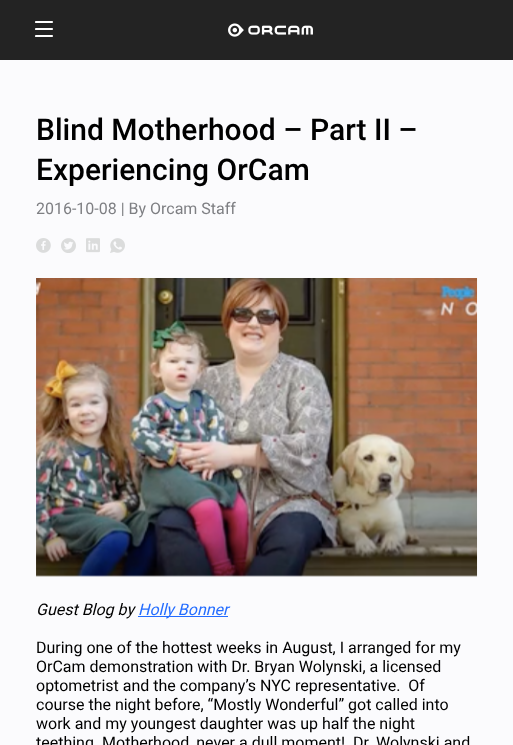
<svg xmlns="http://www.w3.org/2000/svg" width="513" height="745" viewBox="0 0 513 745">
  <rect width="100%" height="100%" fill="rgb(251,251,253)"/>
  <rect x="0" y="0" width="513" height="60" fill="rgb(35,35,35)"/>
  <path d="M36 22H52M36 29H52M36 36H52" fill="none" stroke="rgb(255,255,255)" stroke-width="2.2" stroke-linecap="round"/>
  <image x="228" y="23" width="85" height="14" href="pic1.png"/>
  <g font-family="Roboto" font-size="30" font-weight="500" fill="rgb(0,0,0)">
    <text>
      <tspan x="36" y="140">Blind Motherhood – Part II –</tspan>
      <tspan x="36" y="180">Experiencing OrCam</tspan>
    </text>
  </g>
  <text x="36" y="214" font-family="Roboto" font-size="16" fill="rgb(126,127,131)">2016-10-08 | By Orcam Staff</text>
  <image x="36" y="238" width="15" height="15" href="pic2.png"/>
  <image x="61" y="238" width="15" height="15" href="pic3.png"/>
  <image x="86" y="238" width="14" height="15" href="pic4.png"/>
  <image x="110" y="238" width="15" height="15" href="pic5.png"/>
  <image x="36" y="278" width="442" height="299" href="pic6.png"/>
  <text x="36" y="615" font-family="Roboto" font-size="16" font-style="italic" fill="rgb(0,0,0)">Guest Blog by</text>
  <rect x="138" y="616" width="90" height="1" fill="rgb(35,108,255)"/>
  <text x="138" y="615" font-family="Roboto" font-size="16" font-style="italic" fill="rgb(35,108,255)">Holly Bonner</text>
  <g font-family="Roboto" font-size="16" fill="rgb(0,0,0)">
    <text xml:space="preserve"><tspan x="36" y="653">During one of the hottest weeks in August, I arranged for my</tspan><tspan x="36" y="672">OrCam demonstration with Dr. Bryan Wolynski, a licensed</tspan><tspan x="36" y="691">optometrist and the company’s NYC representative.  Of</tspan><tspan x="36" y="710">course the night before, “Mostly Wonderful” got called into</tspan><tspan x="36" y="729">work and my youngest daughter was up half the night</tspan><tspan x="36" y="748">teething. Motherhood, never a dull moment!  Dr. Wolynski and</tspan></text>
  </g>
</svg>
